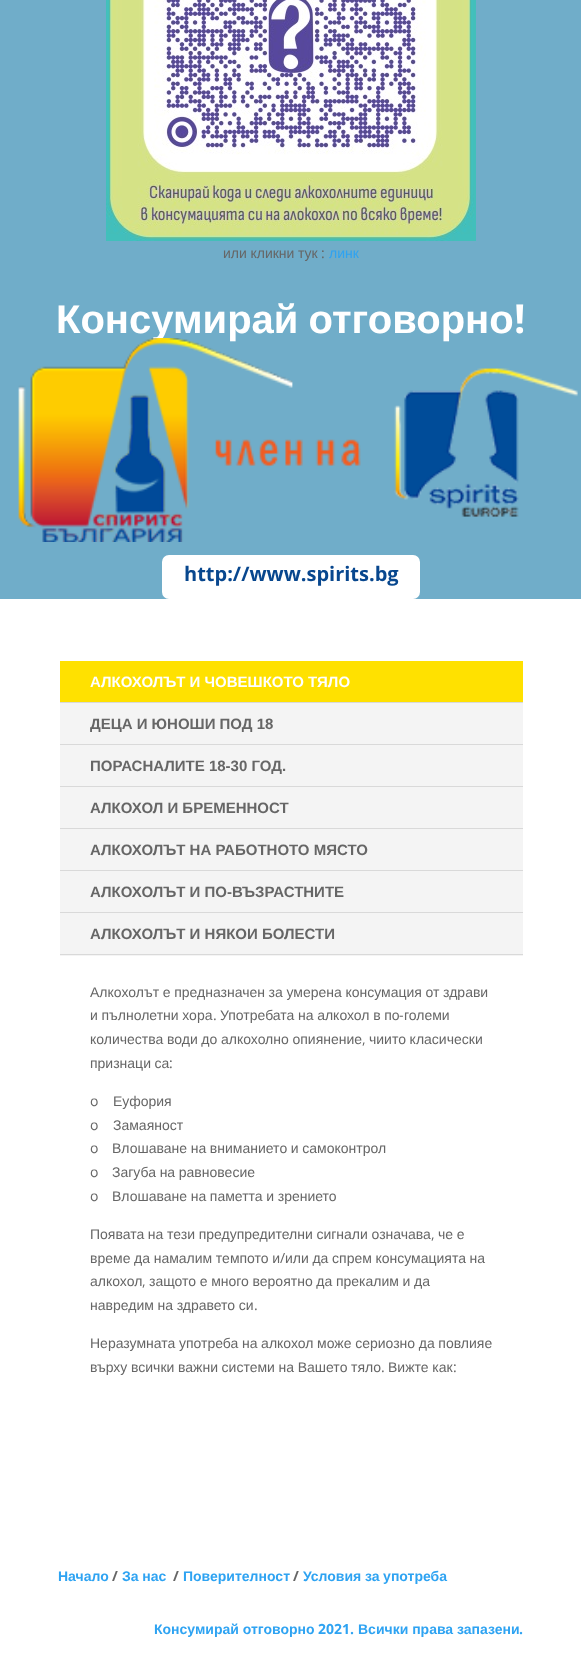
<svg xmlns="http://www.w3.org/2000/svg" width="581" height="1661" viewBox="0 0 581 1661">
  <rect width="100%" height="100%" fill="rgb(255,255,255)"/>
  <rect x="0" y="0" width="581" height="599" fill="rgb(112,173,201)"/>
  <image x="106" y="0" width="370" height="241" href="pic1.png"/>
  <text x="223" y="258" word-spacing="-0.25" font-family="Liberation Sans" font-size="14" fill="rgb(102,102,102)">или кликни тук</text>
  <text x="321" y="258" font-family="Open Sans" font-size="14" fill="rgb(102,102,102)">:</text>
  <text x="329" y="258" font-family="Liberation Sans" font-size="14" fill="rgb(46,163,242)">линк</text>
  <text x="56" y="333" word-spacing="-1" font-family="Liberation Sans" font-size="40" font-weight="bold" fill="rgb(255,255,255)">Консумирай отговорно</text>
  <text x="514" y="333" font-family="Open Sans" font-size="40" font-weight="bold" fill="rgb(255,255,255)">!</text>
  <image x="18" y="338" width="560" height="204" href="pic2.png"/>
  <rect x="163" y="556" width="256" height="42" rx="6" fill="rgb(255,255,255)" stroke="rgb(255,255,255)" stroke-width="2"/>
  <text x="184" y="581" font-family="Open Sans" font-size="20" font-weight="bold" fill="rgb(8,71,142)">http://www.spirits.bg</text>
  <rect x="60" y="703" width="463" height="253" fill="rgb(244,244,244)"/>
  <rect x="60" y="661" width="463" height="41" fill="rgb(255,225,0)"/>
  <rect x="60" y="702" width="463" height="1" fill="rgb(217,217,217)"/>
  <text x="90" y="687" font-family="Liberation Sans" font-size="15" font-weight="bold" fill="rgb(255,255,255)">АЛКОХОЛЪТ И ЧОВЕШКОТО ТЯЛО</text>
  <rect x="60" y="744" width="463" height="1" fill="rgb(217,217,217)"/>
  <text x="90" y="729" font-family="Liberation Sans" font-size="15" font-weight="bold" fill="rgb(102,102,102)">ДЕЦА И ЮНОШИ ПОД 18</text>
  <rect x="60" y="786" width="463" height="1" fill="rgb(217,217,217)"/>
  <text x="90" y="771" font-family="Liberation Sans" font-size="15" font-weight="bold" fill="rgb(102,102,102)">ПОРАСНАЛИТЕ 18-30 ГОД.</text>
  <rect x="60" y="828" width="463" height="1" fill="rgb(217,217,217)"/>
  <text x="90" y="813" font-family="Liberation Sans" font-size="15" font-weight="bold" fill="rgb(102,102,102)">АЛКОХОЛ И БРЕМЕННОСТ</text>
  <rect x="60" y="870" width="463" height="1" fill="rgb(217,217,217)"/>
  <text x="90" y="855" font-family="Liberation Sans" font-size="15" font-weight="bold" fill="rgb(102,102,102)">АЛКОХОЛЪТ НА РАБОТНОТО МЯСТО</text>
  <rect x="60" y="912" width="463" height="1" fill="rgb(217,217,217)"/>
  <g font-family="Liberation Sans" font-size="15" font-weight="bold" fill="rgb(102,102,102)">
    <text x="90" y="897">АЛКОХОЛЪТ И ПО-ВЪЗРАСТНИТЕ</text>
    <text x="90" y="939">АЛКОХОЛЪТ И НЯКОИ БОЛЕСТИ</text>
  </g>
  <rect x="60" y="954" width="463" height="1" fill="rgb(217,217,217)"/>
  <g font-family="Liberation Sans" font-size="14" fill="rgb(102,102,102)">
    <text>
      <tspan x="90" y="997" word-spacing="-0.25">Алкохолът е предназначен за умерена консумация от здрави</tspan>
      <tspan x="90" y="1020" word-spacing="-0.25">и пълнолетни хора</tspan>
    </text>
    <text x="220" y="1020" word-spacing="-0.25">Употребата на алкохол в по</text>
  </g>
  <text x="399" y="1020" font-family="Open Sans" font-size="14" fill="rgb(102,102,102)">-</text>
  <text x="404" y="1020" font-family="Liberation Sans" font-size="14" fill="rgb(102,102,102)">големи</text>
  <text x="213" y="1020" font-family="Open Sans" font-size="14" fill="rgb(102,102,102)">.</text>
  <text x="90" y="1044" word-spacing="-0.25" font-family="Liberation Sans" font-size="14" fill="rgb(102,102,102)">количества води до алкохолно опиянение</text>
  <text x="362" y="1044" font-family="Open Sans" font-size="14" fill="rgb(102,102,102)">,</text>
  <g font-family="Liberation Sans" font-size="14" fill="rgb(102,102,102)">
    <text x="369" y="1044" word-spacing="-0.25">чиито класически</text>
    <text x="90" y="1068" word-spacing="-0.25">признаци са</text>
  </g>
  <g font-family="Open Sans" font-size="14" fill="rgb(102,102,102)">
    <text x="169" y="1068">:</text>
    <text x="90" y="1106">o</text>
  </g>
  <text x="113" y="1106" font-family="Liberation Sans" font-size="14" fill="rgb(102,102,102)">Еуфория</text>
  <text x="90" y="1130" font-family="Open Sans" font-size="14" fill="rgb(102,102,102)">o</text>
  <text x="113" y="1130" font-family="Liberation Sans" font-size="14" fill="rgb(102,102,102)">Замаяност</text>
  <text x="90" y="1153" font-family="Open Sans" font-size="14" fill="rgb(102,102,102)">o</text>
  <text x="112" y="1153" word-spacing="-0.25" font-family="Liberation Sans" font-size="14" fill="rgb(102,102,102)">Влошаване на вниманието и самоконтрол</text>
  <text x="90" y="1177" font-family="Open Sans" font-size="14" fill="rgb(102,102,102)">o</text>
  <text x="112" y="1177" word-spacing="-0.25" font-family="Liberation Sans" font-size="14" fill="rgb(102,102,102)">Загуба на равновесие</text>
  <text x="90" y="1201" font-family="Open Sans" font-size="14" fill="rgb(102,102,102)">o</text>
  <g font-family="Liberation Sans" font-size="14" fill="rgb(102,102,102)">
    <text x="112" y="1201" word-spacing="-0.25">Влошаване на паметта и зрението</text>
    <text x="90" y="1239" word-spacing="-0.25">Появата на тези предупредителни сигнали означава</text>
  </g>
  <text x="431" y="1239" font-family="Open Sans" font-size="14" fill="rgb(102,102,102)">,</text>
  <g font-family="Liberation Sans" font-size="14" fill="rgb(102,102,102)">
    <text x="438" y="1239" word-spacing="-0.25">че е</text>
    <text x="90" y="1263" word-spacing="-0.25">време да намалим темпото и</text>
  </g>
  <text x="280" y="1263" font-family="Open Sans" font-size="14" fill="rgb(102,102,102)">/</text>
  <g font-family="Liberation Sans" font-size="14" fill="rgb(102,102,102)">
    <text x="285" y="1263" word-spacing="-0.25">или да спрем консумацията на</text>
    <text x="90" y="1286">алкохол</text>
  </g>
  <text x="142" y="1286" font-family="Open Sans" font-size="14" fill="rgb(102,102,102)">,</text>
  <g font-family="Liberation Sans" font-size="14" fill="rgb(102,102,102)">
    <text x="149" y="1286" word-spacing="-0.25">защото е много вероятно да прекалим и да</text>
    <text x="90" y="1310" word-spacing="-0.25">навредим на здравето си</text>
  </g>
  <text x="254" y="1310" font-family="Open Sans" font-size="14" fill="rgb(102,102,102)">.</text>
  <g font-family="Liberation Sans" font-size="14" fill="rgb(102,102,102)">
    <text>
      <tspan x="90" y="1348" word-spacing="-0.25">Неразумната употреба на алкохол може сериозно да повлияе</tspan>
      <tspan x="90" y="1372" word-spacing="-0.25">върху всички важни системи на Вашето тяло</tspan>
    </text>
  </g>
  <text x="381" y="1372" font-family="Open Sans" font-size="14" fill="rgb(102,102,102)">.</text>
  <text x="388" y="1372" word-spacing="-0.25" font-family="Liberation Sans" font-size="14" fill="rgb(102,102,102)">Вижте как</text>
  <text x="453" y="1372" font-family="Open Sans" font-size="14" fill="rgb(102,102,102)">:</text>
  <text x="58" y="1581" font-family="Liberation Sans" font-size="14" font-weight="bold" fill="rgb(46,163,242)">Начало</text>
  <text x="112" y="1581" font-family="Open Sans" font-size="14" font-weight="bold" fill="rgb(102,102,102)">/</text>
  <text x="122" y="1581" word-spacing="-0.25" font-family="Liberation Sans" font-size="14" font-weight="bold" fill="rgb(46,163,242)">За нас</text>
  <text x="173" y="1581" font-family="Open Sans" font-size="14" font-weight="bold" fill="rgb(102,102,102)">/</text>
  <text x="183" y="1581" font-family="Liberation Sans" font-size="14" font-weight="bold" fill="rgb(46,163,242)">Поверителност</text>
  <text x="293" y="1581" font-family="Open Sans" font-size="14" font-weight="bold" fill="rgb(102,102,102)">/</text>
  <g font-family="Liberation Sans" font-size="14" font-weight="bold" fill="rgb(46,163,242)">
    <text x="303" y="1581" word-spacing="-0.25">Условия за употреба</text>
    <text x="154" y="1634">Консумирай отговорно</text>
  </g>
  <text x="318" y="1634" font-family="Open Sans" font-size="14" font-weight="bold" fill="rgb(46,163,242)">2021.</text>
  <text x="358" y="1634" font-family="Liberation Sans" font-size="14" font-weight="bold" fill="rgb(46,163,242)">Всички права запазени</text>
  <text x="519" y="1634" font-family="Open Sans" font-size="14" font-weight="bold" fill="rgb(46,163,242)">.</text>
</svg>
